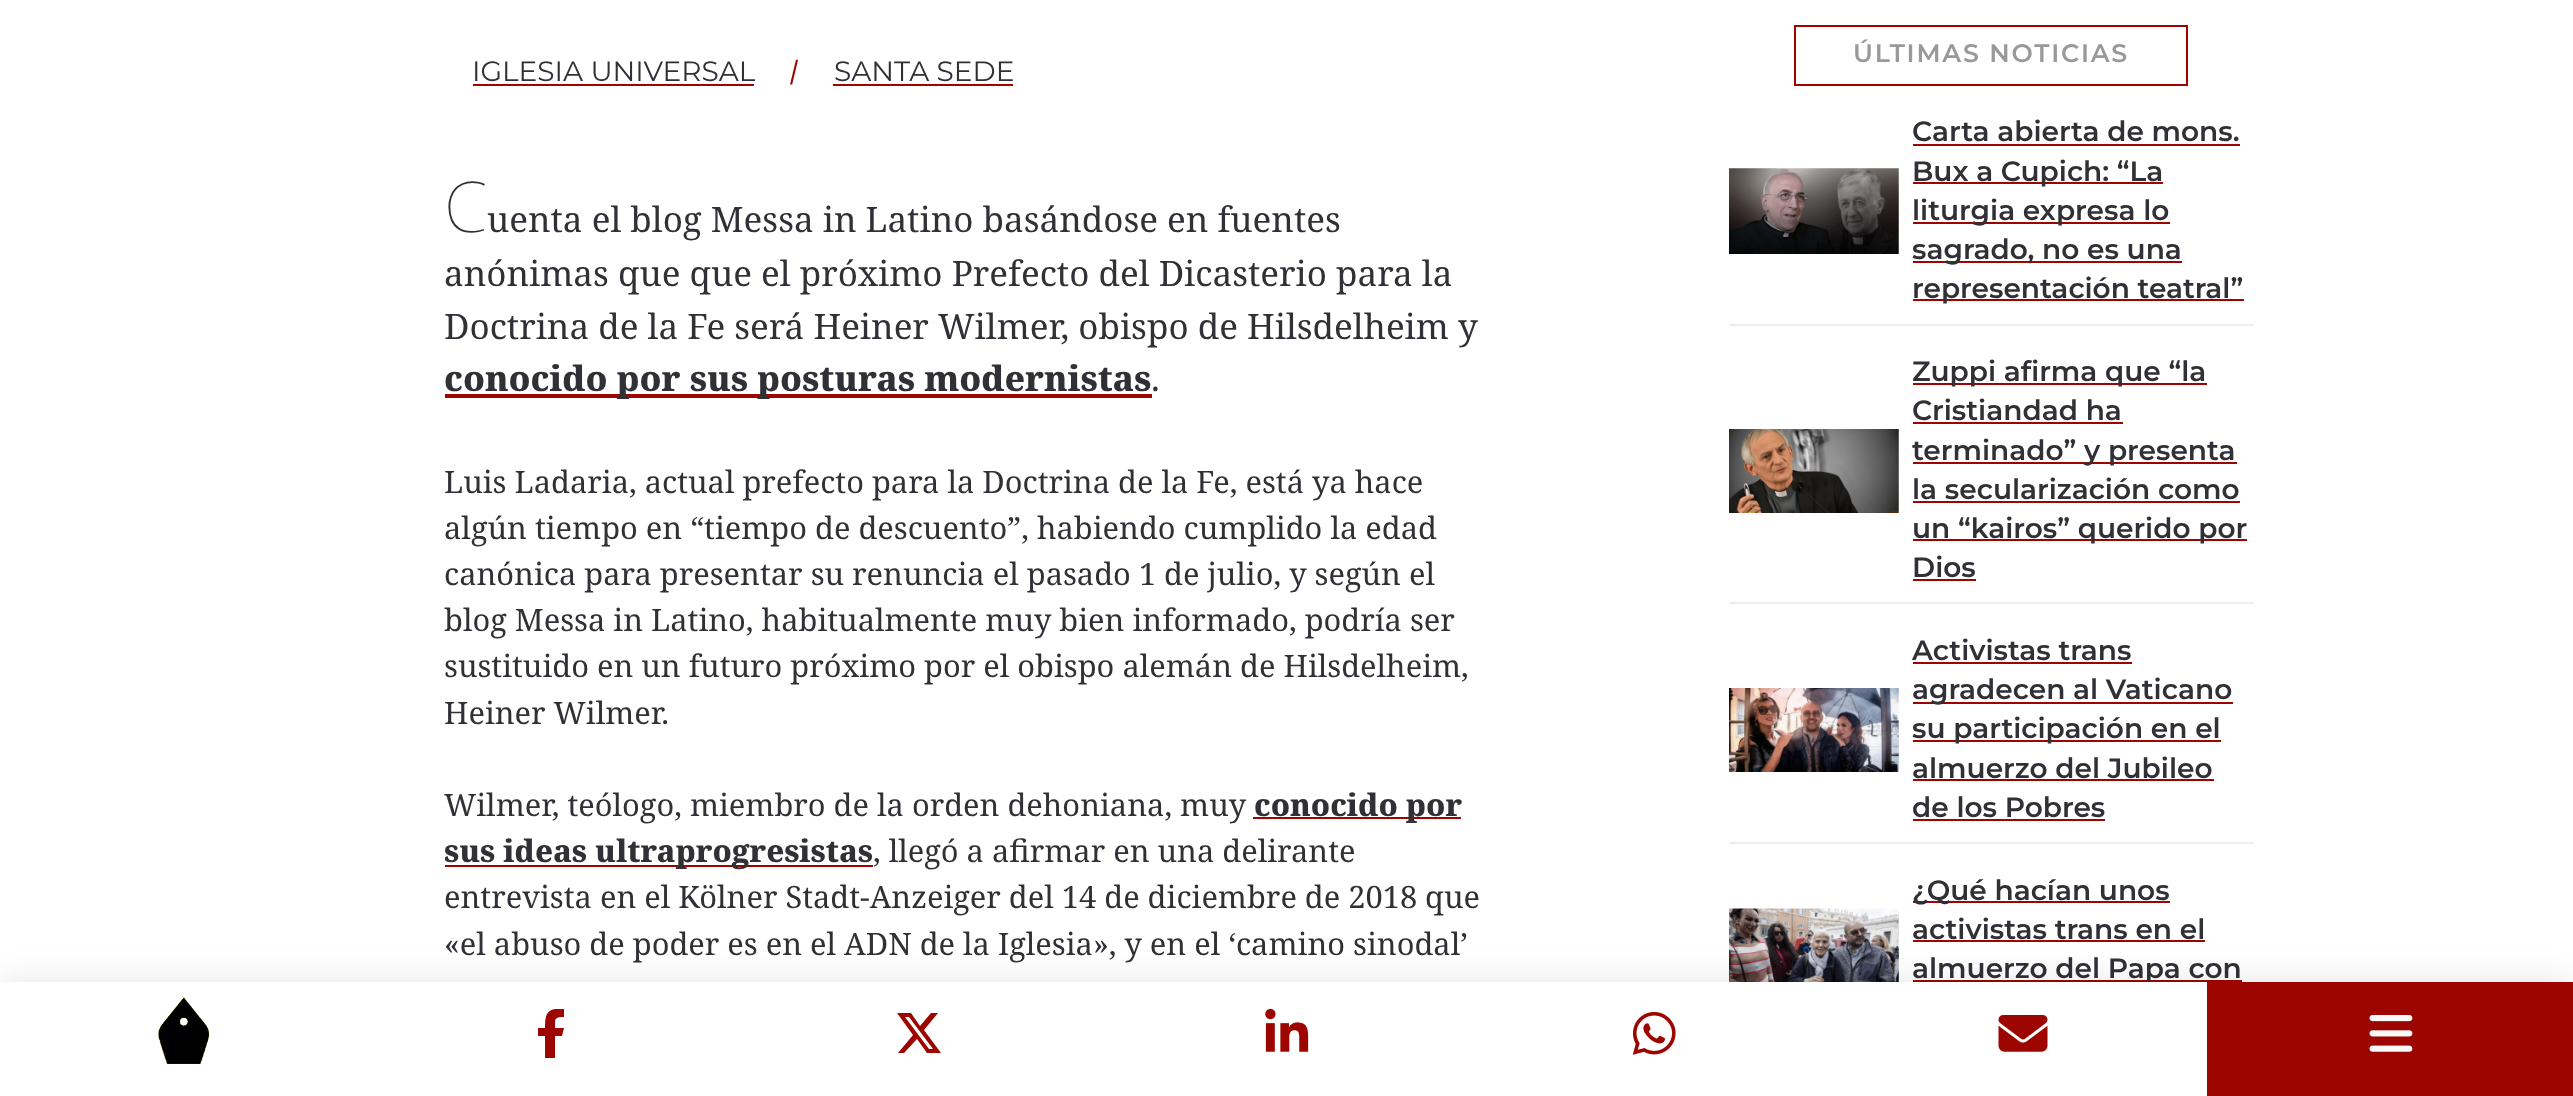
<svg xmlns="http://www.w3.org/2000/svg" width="2573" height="1096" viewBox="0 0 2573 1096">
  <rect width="100%" height="100%" fill="rgb(255,255,255)"/>
  <text x="472" y="81" font-family="Montserrat" font-size="28" fill="rgb(48,48,54)">IGLESIA UNIVERSAL</text>
  <rect x="473" y="84" width="281" height="2" fill="rgb(157,6,0)"/>
  <text x="790" y="81" font-family="Noto Serif" font-size="28" font-weight="800" fill="rgb(157,6,0)">/</text>
  <text x="834" y="81" font-family="Montserrat" font-size="28" fill="rgb(48,48,54)">SANTA SEDE</text>
  <rect x="833" y="84" width="180" height="2" fill="rgb(157,6,0)"/>
  <text x="444" y="232" font-family="Noto Sans" font-size="70" font-weight="100" fill="rgb(48,48,54)">C</text>
  <g font-family="Noto Serif" font-size="35" fill="rgb(48,48,54)">
    <text x="487" y="232">uenta el blog Messa in Latino basándose en fuentes</text>
    <text>
      <tspan x="444" y="286">anónimas que que el próximo Prefecto del Dicasterio para la</tspan>
      <tspan x="444" y="339">Doctrina de la Fe será Heiner Wilmer, obispo de Hilsdelheim y</tspan>
    </text>
  </g>
  <rect x="445" y="394" width="707" height="4" fill="rgb(157,6,0)"/>
  <text x="444" y="391" font-family="Noto Serif" font-size="35" font-weight="800" fill="rgb(48,48,54)">conocido por sus posturas modernistas</text>
  <text x="1151" y="391" font-family="Noto Serif" font-size="35" fill="rgb(48,48,54)">.</text>
  <g font-family="Noto Serif" font-size="30.8" fill="rgb(48,48,54)">
    <text>
      <tspan x="444" y="493">Luis Ladaria, actual prefecto para la Doctrina de la Fe, está ya hace</tspan>
      <tspan x="444" y="539">algún tiempo en “tiempo de descuento”, habiendo cumplido la edad</tspan>
      <tspan x="444" y="585">canónica para presentar su renuncia el pasado 1 de julio, y según el</tspan>
      <tspan x="444" y="631">blog Messa in Latino, habitualmente muy bien informado, podría ser</tspan>
      <tspan x="444" y="677">sustituido en un futuro próximo por el obispo alemán de Hilsdelheim,</tspan>
      <tspan x="444" y="724">Heiner Wilmer.</tspan>
    </text>
    <text x="444" y="816">Wilmer, teólogo, miembro de la orden dehoniana, muy</text>
  </g>
  <rect x="1253" y="817" width="208" height="2" fill="rgb(157,6,0)"/>
  <text x="1254" y="816" font-family="Noto Serif" font-size="30.8" font-weight="800" fill="rgb(48,48,54)">conocido por</text>
  <rect x="445" y="865" width="428" height="2" fill="rgb(157,6,0)"/>
  <text x="444" y="862" font-family="Noto Serif" font-size="30.8" font-weight="800" fill="rgb(48,48,54)">sus ideas ultraprogresistas</text>
  <g font-family="Noto Serif" font-size="30.8" fill="rgb(48,48,54)">
    <text x="873" y="862">, llegó a afirmar en una delirante</text>
    <text>
      <tspan x="444" y="908">entrevista en el Kölner Stadt-Anzeiger del 14 de diciembre de 2018 que</tspan>
      <tspan x="444" y="955">«el abuso de poder es en el ADN de la Iglesia», y en el ‘camino sinodal’</tspan>
    </text>
  </g>
  <rect x="1795" y="26" width="392" height="59" fill="none" stroke="rgb(157,6,0)" stroke-width="2"/>
  <text x="1853" y="62" font-family="Montserrat" font-size="25.25" font-weight="600" letter-spacing="1.75" fill="rgb(153,153,153)">ÚLTIMAS NOTICIAS</text>
  <rect x="1729" y="324" width="525" height="2" fill="rgb(238,238,238)"/>
  <image x="1729" y="168" width="170" height="86" href="pic1.png"/>
  <text x="1912" y="141" font-family="Montserrat" font-size="28" font-weight="600" fill="rgb(48,48,54)">Carta abierta de mons.</text>
  <rect x="1913" y="144" width="327" height="2" fill="rgb(157,6,0)"/>
  <rect x="1913" y="182" width="250" height="2" fill="rgb(157,6,0)"/>
  <text x="1912" y="181" font-family="Montserrat" font-size="28" font-weight="600" fill="rgb(48,48,54)">Bux a Cupich: “La</text>
  <rect x="1913" y="222" width="257" height="2" fill="rgb(157,6,0)"/>
  <text x="1912" y="220" font-family="Montserrat" font-size="28" font-weight="600" fill="rgb(48,48,54)">liturgia expresa lo</text>
  <rect x="1913" y="261" width="269" height="2" fill="rgb(157,6,0)"/>
  <text x="1912" y="259" font-family="Montserrat" font-size="28" font-weight="600" fill="rgb(48,48,54)">sagrado, no es una</text>
  <rect x="1913" y="299" width="331" height="2" fill="rgb(157,6,0)"/>
  <text x="1912" y="298" font-family="Montserrat" font-size="28" font-weight="600" fill="rgb(48,48,54)">representación teatral”</text>
  <rect x="1729" y="602" width="525" height="2" fill="rgb(238,238,238)"/>
  <image x="1729" y="429" width="170" height="84" href="pic2.png"/>
  <rect x="1913" y="383" width="294" height="2" fill="rgb(157,6,0)"/>
  <g font-family="Montserrat" font-size="28" font-weight="600" fill="rgb(48,48,54)">
    <text>
      <tspan x="1912" y="381">Zuppi afirma que “la</tspan>
      <tspan x="1912" y="420">Cristiandad ha</tspan>
    </text>
  </g>
  <rect x="1913" y="422" width="210" height="2" fill="rgb(157,6,0)"/>
  <rect x="1913" y="462" width="324" height="2" fill="rgb(157,6,0)"/>
  <g font-family="Montserrat" font-size="28" font-weight="600" fill="rgb(48,48,54)">
    <text>
      <tspan x="1912" y="460">terminado” y presenta</tspan>
      <tspan x="1912" y="499">la secularización como</tspan>
    </text>
  </g>
  <rect x="1913" y="501" width="327" height="2" fill="rgb(157,6,0)"/>
  <rect x="1913" y="539" width="334" height="2" fill="rgb(157,6,0)"/>
  <g font-family="Montserrat" font-size="28" font-weight="600" fill="rgb(48,48,54)">
    <text>
      <tspan x="1912" y="538">un “kairos” querido por</tspan>
      <tspan x="1912" y="577">Dios</tspan>
    </text>
  </g>
  <rect x="1913" y="579" width="63" height="2" fill="rgb(157,6,0)"/>
  <rect x="1729" y="842" width="525" height="2" fill="rgb(238,238,238)"/>
  <image x="1729" y="688" width="170" height="84" href="pic3.png"/>
  <text x="1912" y="660" font-family="Montserrat" font-size="28" font-weight="600" fill="rgb(48,48,54)">Activistas trans</text>
  <rect x="1913" y="662" width="219" height="2" fill="rgb(157,6,0)"/>
  <rect x="1913" y="702" width="320" height="2" fill="rgb(157,6,0)"/>
  <text x="1912" y="699" font-family="Montserrat" font-size="28" font-weight="600" fill="rgb(48,48,54)">agradecen al Vaticano</text>
  <rect x="1913" y="740" width="308" height="2" fill="rgb(157,6,0)"/>
  <g font-family="Montserrat" font-size="28" font-weight="600" fill="rgb(48,48,54)">
    <text>
      <tspan x="1912" y="738">su participación en el</tspan>
      <tspan x="1912" y="778">almuerzo del Jubileo</tspan>
    </text>
  </g>
  <rect x="1913" y="779" width="301" height="2" fill="rgb(157,6,0)"/>
  <text x="1912" y="817" font-family="Montserrat" font-size="28" font-weight="600" fill="rgb(48,48,54)">de los Pobres</text>
  <rect x="1913" y="819" width="192" height="2" fill="rgb(157,6,0)"/>
  <image x="1729" y="908" width="170" height="74" href="pic4.png"/>
  <rect x="1913" y="901" width="257" height="2" fill="rgb(157,6,0)"/>
  <g font-family="Montserrat" font-size="28" font-weight="600" fill="rgb(48,48,54)">
    <text>
      <tspan x="1912" y="900">¿Qué hacían unos</tspan>
      <tspan x="1912" y="939">activistas trans en el</tspan>
    </text>
  </g>
  <rect x="1913" y="940" width="292" height="2" fill="rgb(157,6,0)"/>
  <rect x="1913" y="980" width="329" height="2" fill="rgb(157,6,0)"/>
  <text x="1912" y="978" font-family="Montserrat" font-size="28" font-weight="600" fill="rgb(48,48,54)">almuerzo del Papa con</text>
  <rect x="0" y="982" width="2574" height="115" fill="rgba(0,0,0,0.1)" filter="blur(17.5px)"/>
  <rect x="0" y="982" width="2207" height="114" fill="rgb(255,255,255)"/>
  <image x="158" y="997" width="51" height="67" href="pic5.png"/>
  <path d="M562 1036L564 1028H555C555 1019 554 1017 564 1017V1009H556C545 1010 545 1019 545 1028H538V1036H545V1058H555V1036Z" fill="rgb(157,6,0)"/>
  <path d="M931 1013H938L924 1030L941 1053H927L917 1039L904 1053H898L913 1035L897 1013H911L920 1026ZM929 1049H933L909 1017H905Z" fill="rgb(157,6,0)"/>
  <image x="1265" y="1008" width="44" height="44" href="pic6.png"/>
  <image x="1632" y="1011" width="44" height="44" href="pic7.png"/>
  <image x="1998" y="1015" width="50" height="37" href="pic8.png"/>
  <rect x="2207" y="982" width="366" height="114" fill="rgb(157,6,0)"/>
  <image x="2369" y="1015" width="44" height="37" href="pic9.png"/>
</svg>
